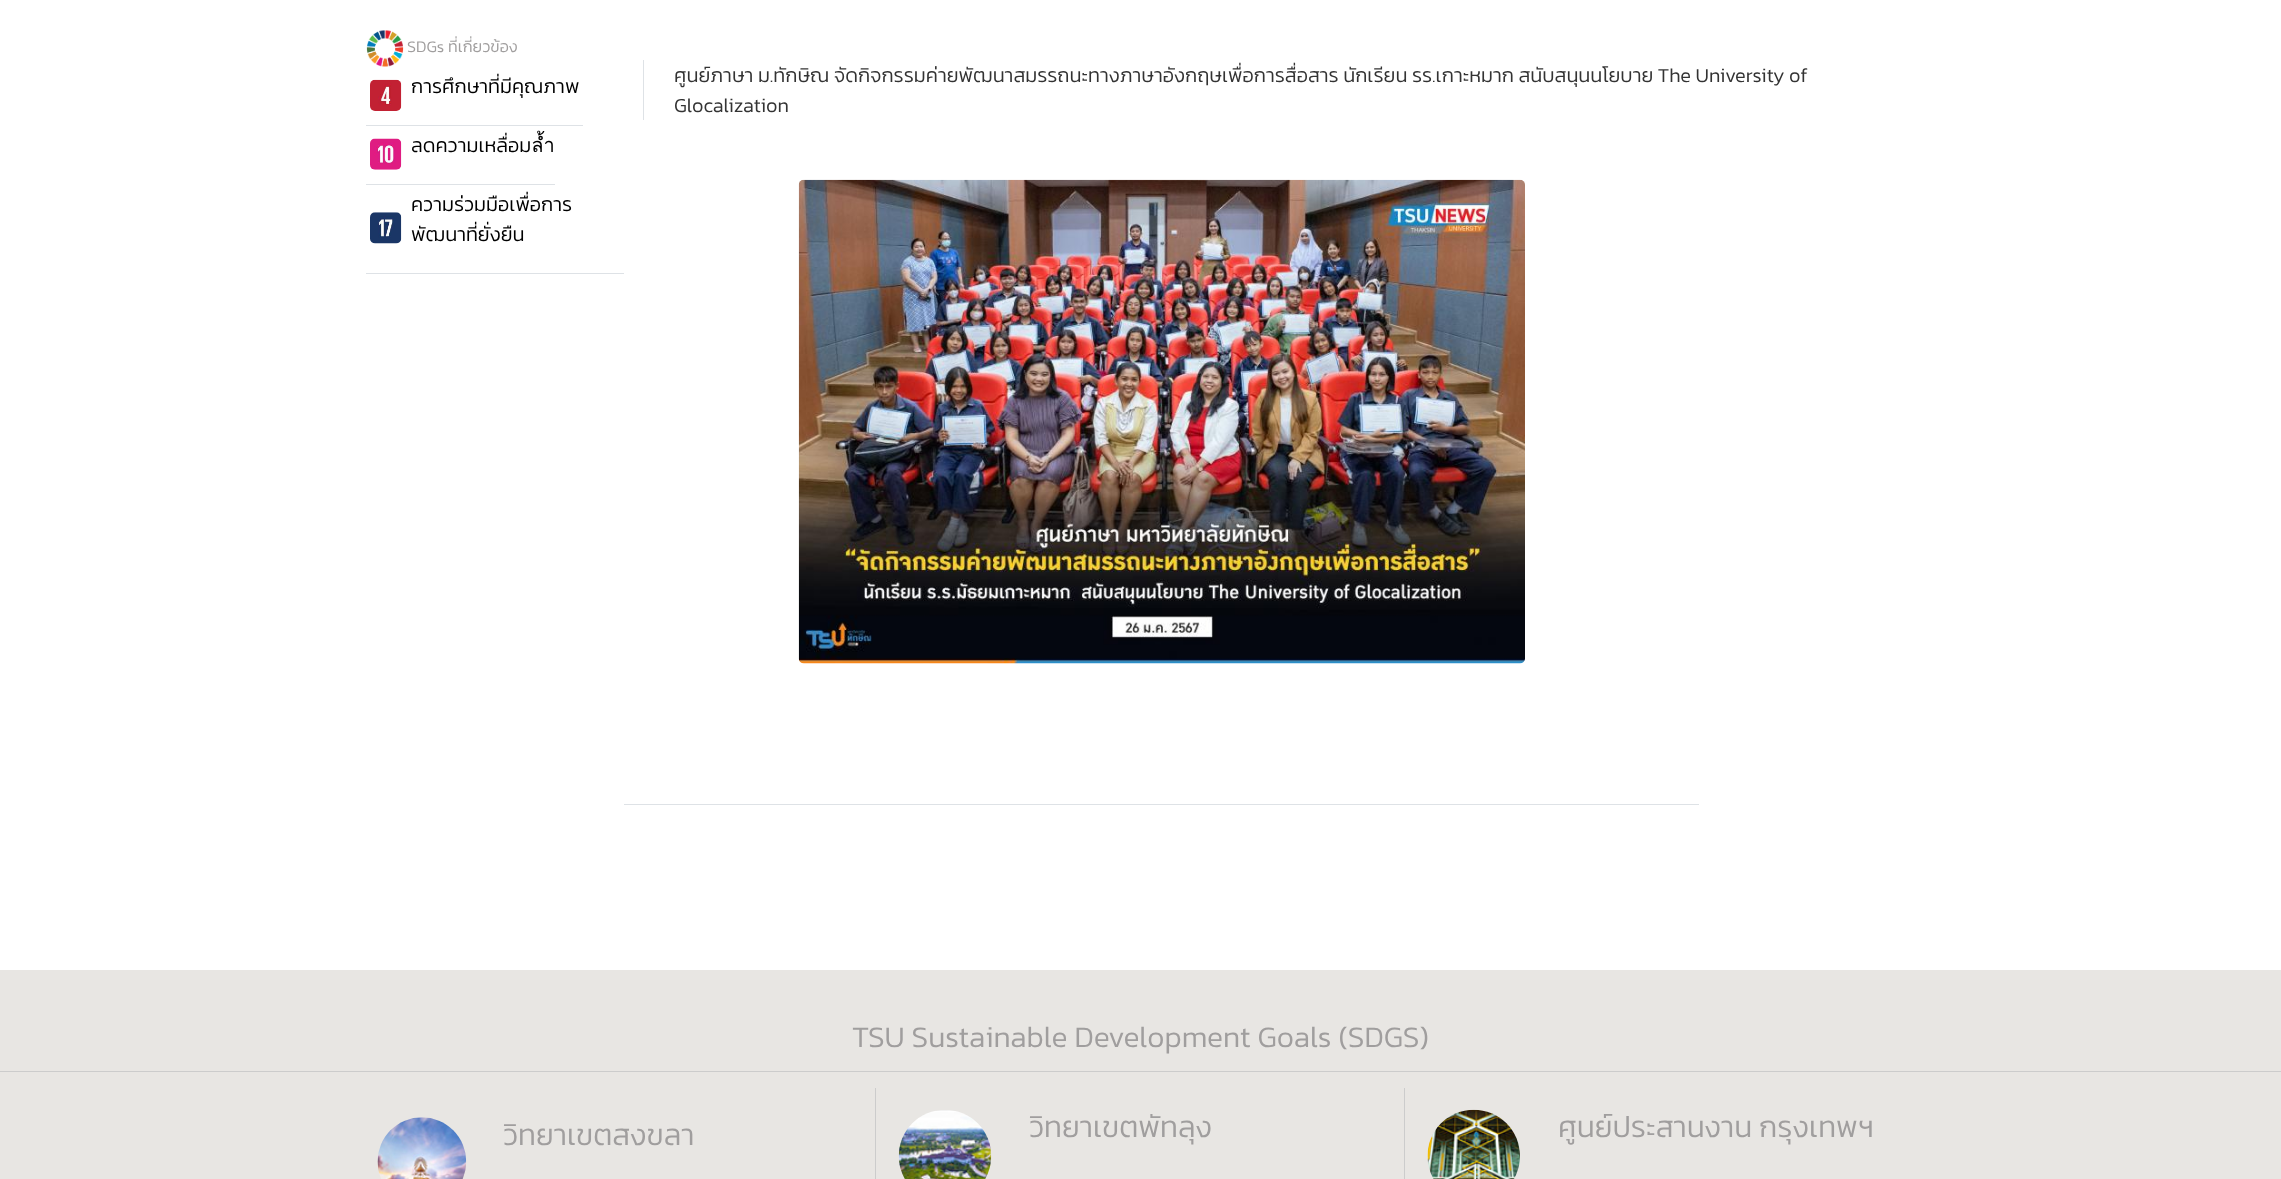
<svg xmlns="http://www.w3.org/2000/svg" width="2281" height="1179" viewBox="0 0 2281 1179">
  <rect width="100%" height="100%" fill="rgb(255,255,255)"/>
  <image x="366" y="30" width="38" height="37" href="pic1.png"/>
  <text x="407" y="52" font-family="Kanit" font-size="16.25" font-weight="300" fill="rgb(160,158,158)">SDGs ที่เกี่ยวข้อง</text>
  <rect x="366" y="125" width="217" height="1" fill="rgb(222,226,230)"/>
  <image x="370" y="79" width="32" height="32" href="pic2.png"/>
  <text x="411" y="93" font-family="Kanit" font-size="20" font-weight="300" fill="rgb(0,0,0)">การศึกษาที่มีคุณภาพ</text>
  <rect x="366" y="184" width="189" height="1" fill="rgb(222,226,230)"/>
  <image x="370" y="138" width="32" height="32" href="pic3.png"/>
  <text x="411" y="152" font-family="Kanit" font-size="20" font-weight="300" fill="rgb(0,0,0)">ลดความเหลื่อมล้ำ</text>
  <rect x="366" y="273" width="258" height="1" fill="rgb(222,226,230)"/>
  <image x="370" y="212" width="32" height="32" href="pic4.png"/>
  <g font-family="Kanit" font-size="20" font-weight="300" fill="rgb(0,0,0)">
    <text>
      <tspan x="411" y="211">ความร่วมมือเพื่อการ</tspan>
      <tspan x="411" y="241">พัฒนาที่ยั่งยืน</tspan>
    </text>
  </g>
  <rect x="643" y="60" width="1" height="60" fill="rgb(222,226,230)"/>
  <g font-family="Kanit" font-size="20" font-weight="300" fill="rgb(51,51,51)">
    <text>
      <tspan x="674" y="82">ศูนย์ภาษา ม.ทักษิณ จัดกิจกรรมค่ายพัฒนาสมรรถนะทางภาษาอังกฤษเพื่อการสื่อสาร นักเรียน รร.เกาะหมาก สนับสนุนนโยบาย The University of</tspan>
      <tspan x="674" y="112">Glocalization</tspan>
    </text>
  </g>
  <image x="798" y="179" width="727" height="485" href="pic5.png"/>
  <rect x="624" y="804" width="1075" height="1" fill="rgb(222,226,230)"/>
  <rect x="0" y="970" width="2281" height="209" fill="rgb(232,230,227)"/>
  <text x="852" y="1047" font-family="Kanit" font-size="30" font-weight="300" fill="rgb(160,158,158)">TSU Sustainable Development Goals (SDGS)</text>
  <rect x="0" y="1071" width="2281" height="1" fill="rgb(204,204,204)"/>
  <rect x="875" y="1088" width="1" height="91" fill="rgb(204,204,204)"/>
  <image x="377" y="1117" width="90" height="62" href="pic6.png"/>
  <text x="503" y="1145" font-family="Kanit" font-size="30" font-weight="300" fill="rgb(160,158,158)">วิทยาเขตสงขลา</text>
  <rect x="1404" y="1088" width="1" height="91" fill="rgb(204,204,204)"/>
  <image x="898" y="1110" width="94" height="69" href="pic7.png"/>
  <text x="1029" y="1137" font-family="Kanit" font-size="30" font-weight="300" fill="rgb(160,158,158)">วิทยาเขตพัทลุง</text>
  <image x="1427" y="1109" width="93" height="70" href="pic8.png"/>
  <text x="1558" y="1137" font-family="Kanit" font-size="30" font-weight="300" fill="rgb(160,158,158)">ศูนย์ประสานงาน กรุงเทพฯ</text>
</svg>
